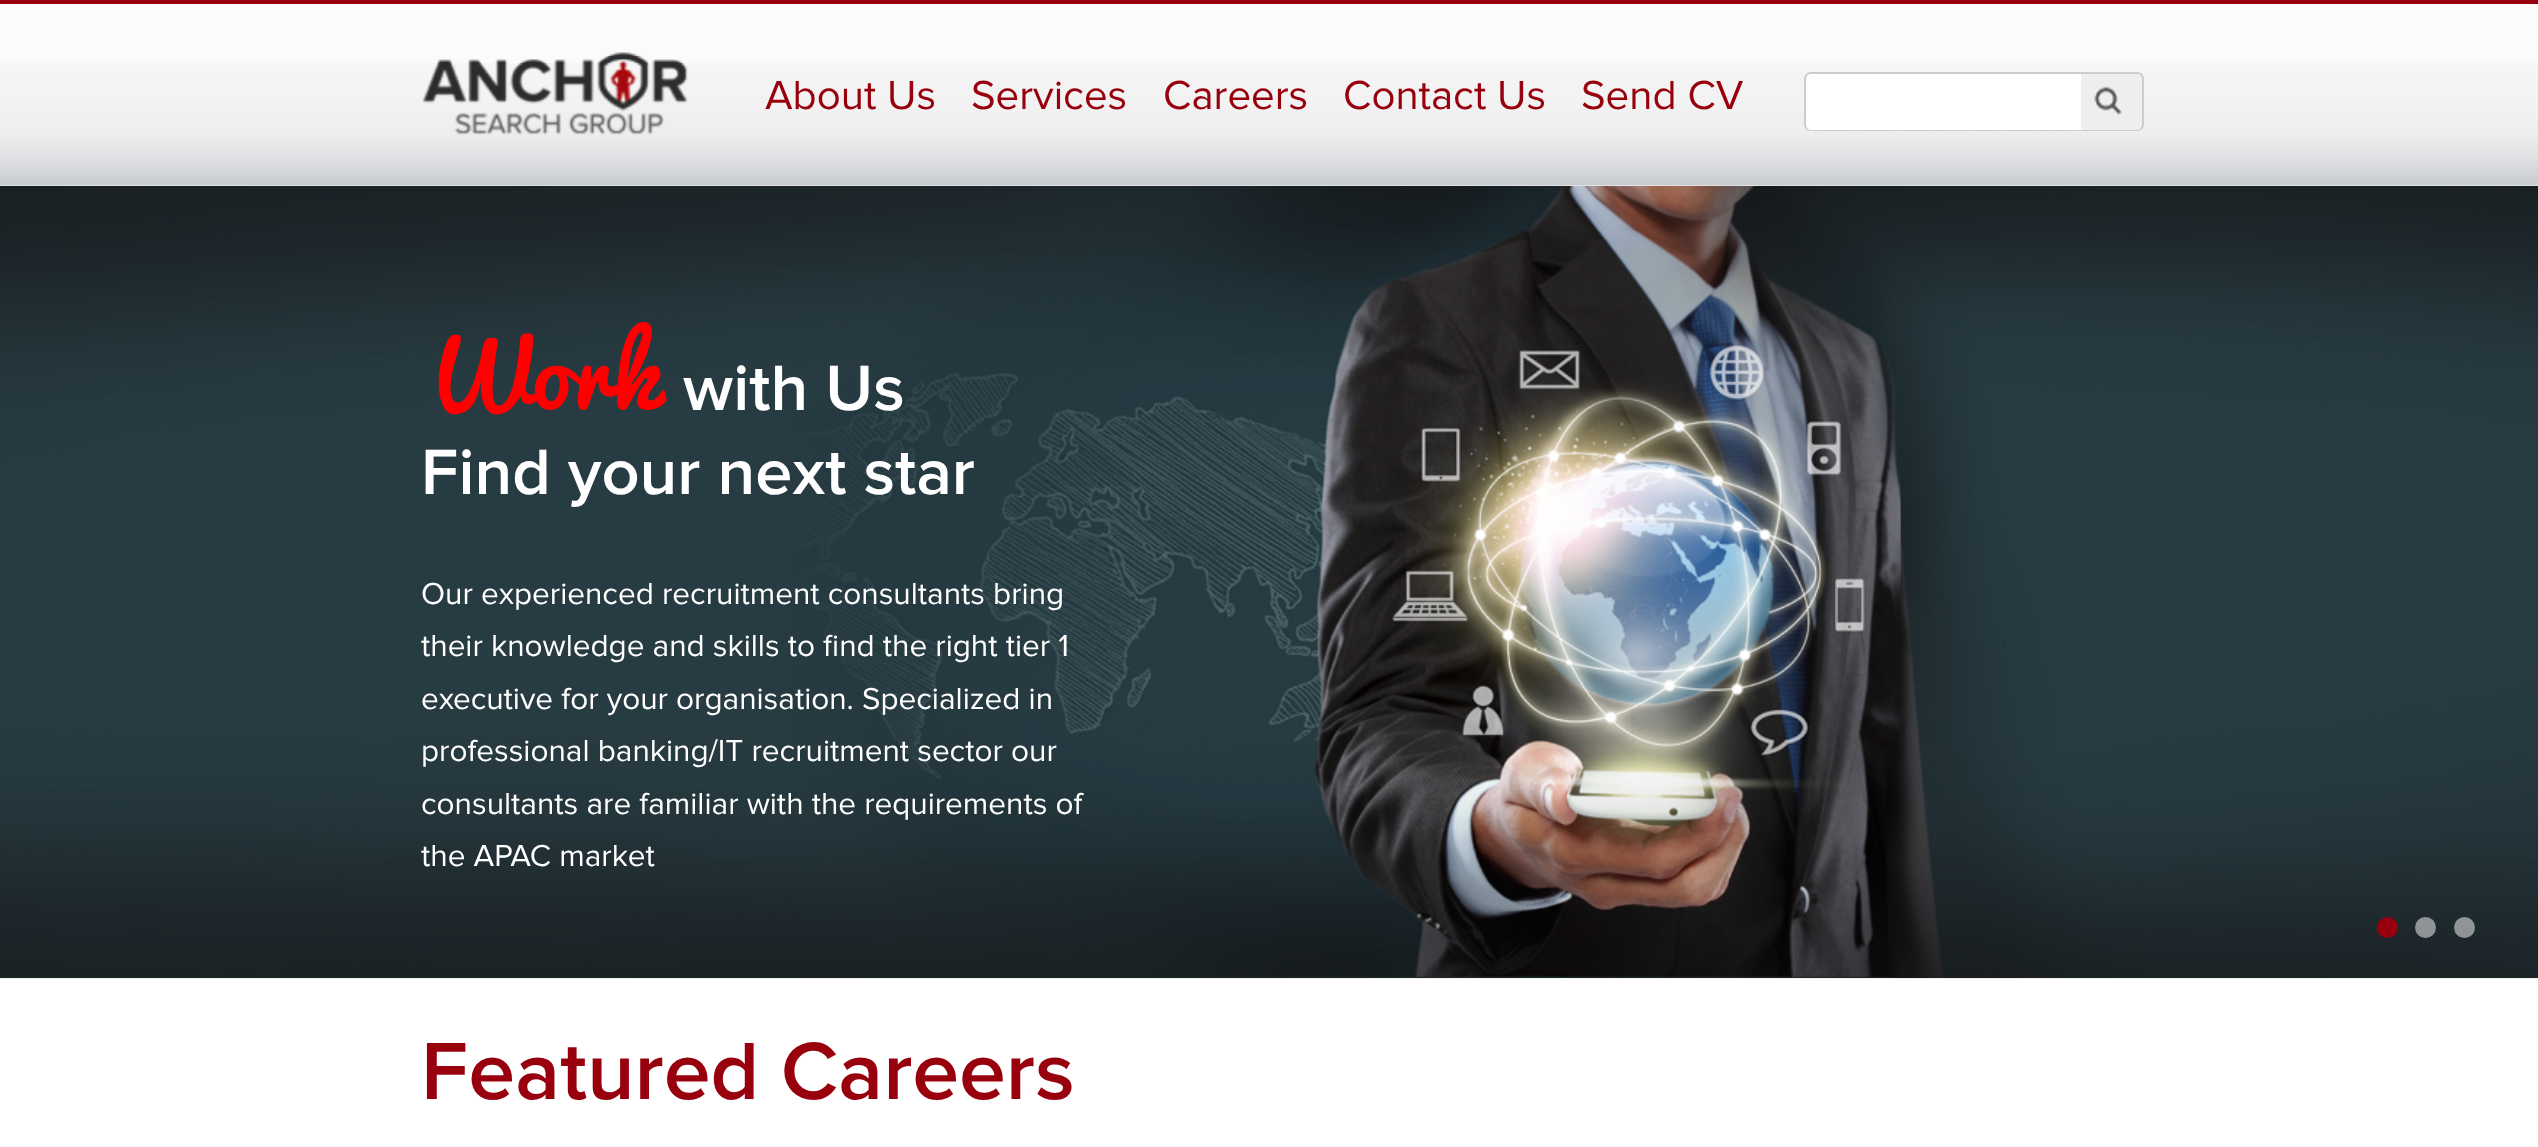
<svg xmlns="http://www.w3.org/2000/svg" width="2538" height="1147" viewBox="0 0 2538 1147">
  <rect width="100%" height="100%" fill="rgb(255,255,255)"/>
  <rect x="0" y="4" width="2538" height="182" fill="rgb(251,251,251)"/>
  <image x="0" y="63" width="2538" height="123" href="pic1.png"/>
  <rect x="0" y="0" width="2538" height="4" fill="rgb(151,0,12)"/>
  <image x="422" y="52" width="266" height="83" href="pic2.png"/>
  <g font-family="Proxima Nova" font-size="42" fill="rgb(151,0,12)">
    <text x="765" y="109">About Us</text>
    <text x="971" y="109">Services</text>
    <text x="1163" y="109">Careers</text>
    <text x="1343" y="109">Contact Us</text>
    <text x="1581" y="109">Send CV</text>
  </g>
  <path d="M1811 72H2081V131H1811C1807 131 1804 128 1804 124V79C1804 75 1807 72 1811 72Z" fill="rgb(255,255,255)"/>
  <path d="M1811 72H2081V131H1811C1807 131 1804 128 1804 124V79C1804 75 1807 72 1811 72ZM1811 74H2081V130H1811C1808 130 1806 127 1806 124V79C1806 76 1808 74 1811 74Z" fill="rgb(204,204,204)" fill-rule="evenodd"/>
  <path d="M2081 72H2137C2141 72 2144 75 2144 79V124C2144 128 2141 131 2137 131H2081Z" fill="rgb(238,238,238)"/>
  <image x="2094" y="86" width="28" height="29" href="pic3.png"/>
  <path d="M2081 72H2137C2141 72 2144 75 2144 79V124C2144 128 2141 131 2137 131H2081ZM2081 74H2137C2140 74 2142 76 2142 79V124C2142 127 2140 130 2137 130H2081Z" fill="rgb(204,204,204)" fill-rule="evenodd"/>
  <image x="0" y="186" width="2538" height="793" href="pic4.png"/>
  <text x="421" y="410" font-family="Pacifico" font-size="94.5" fill="rgb(255,0,0)">Work</text>
  <g font-family="Proxima Nova" font-size="66.5" font-weight="600" fill="rgb(255,255,255)">
    <text x="683" y="410">with Us</text>
    <text x="421" y="494">Find your next star</text>
  </g>
  <g font-family="Proxima Nova" font-size="31.5" fill="rgb(255,255,255)">
    <text>
      <tspan x="421" y="604">Our experienced recruitment consultants bring</tspan>
      <tspan x="421" y="656">their knowledge and skills to find the right tier 1</tspan>
      <tspan x="421" y="709">executive for your organisation. Specialized in</tspan>
      <tspan x="421" y="761">professional banking/IT recruitment sector our</tspan>
      <tspan x="421" y="814">consultants are familiar with the requirements of</tspan>
      <tspan x="421" y="866">the APAC market</tspan>
    </text>
  </g>
  <circle cx="2387.5" cy="927.5" r="10.5" fill="rgb(151,0,12)"/>
  <circle cx="2425.5" cy="927.5" r="10.5" fill="rgba(255,255,255,0.5)"/>
  <circle cx="2464.5" cy="927.5" r="10.5" fill="rgba(255,255,255,0.5)"/>
  <text x="421" y="1099" font-family="Proxima Nova" font-size="84" font-weight="600" fill="rgb(151,0,12)">Featured Careers</text>
</svg>
